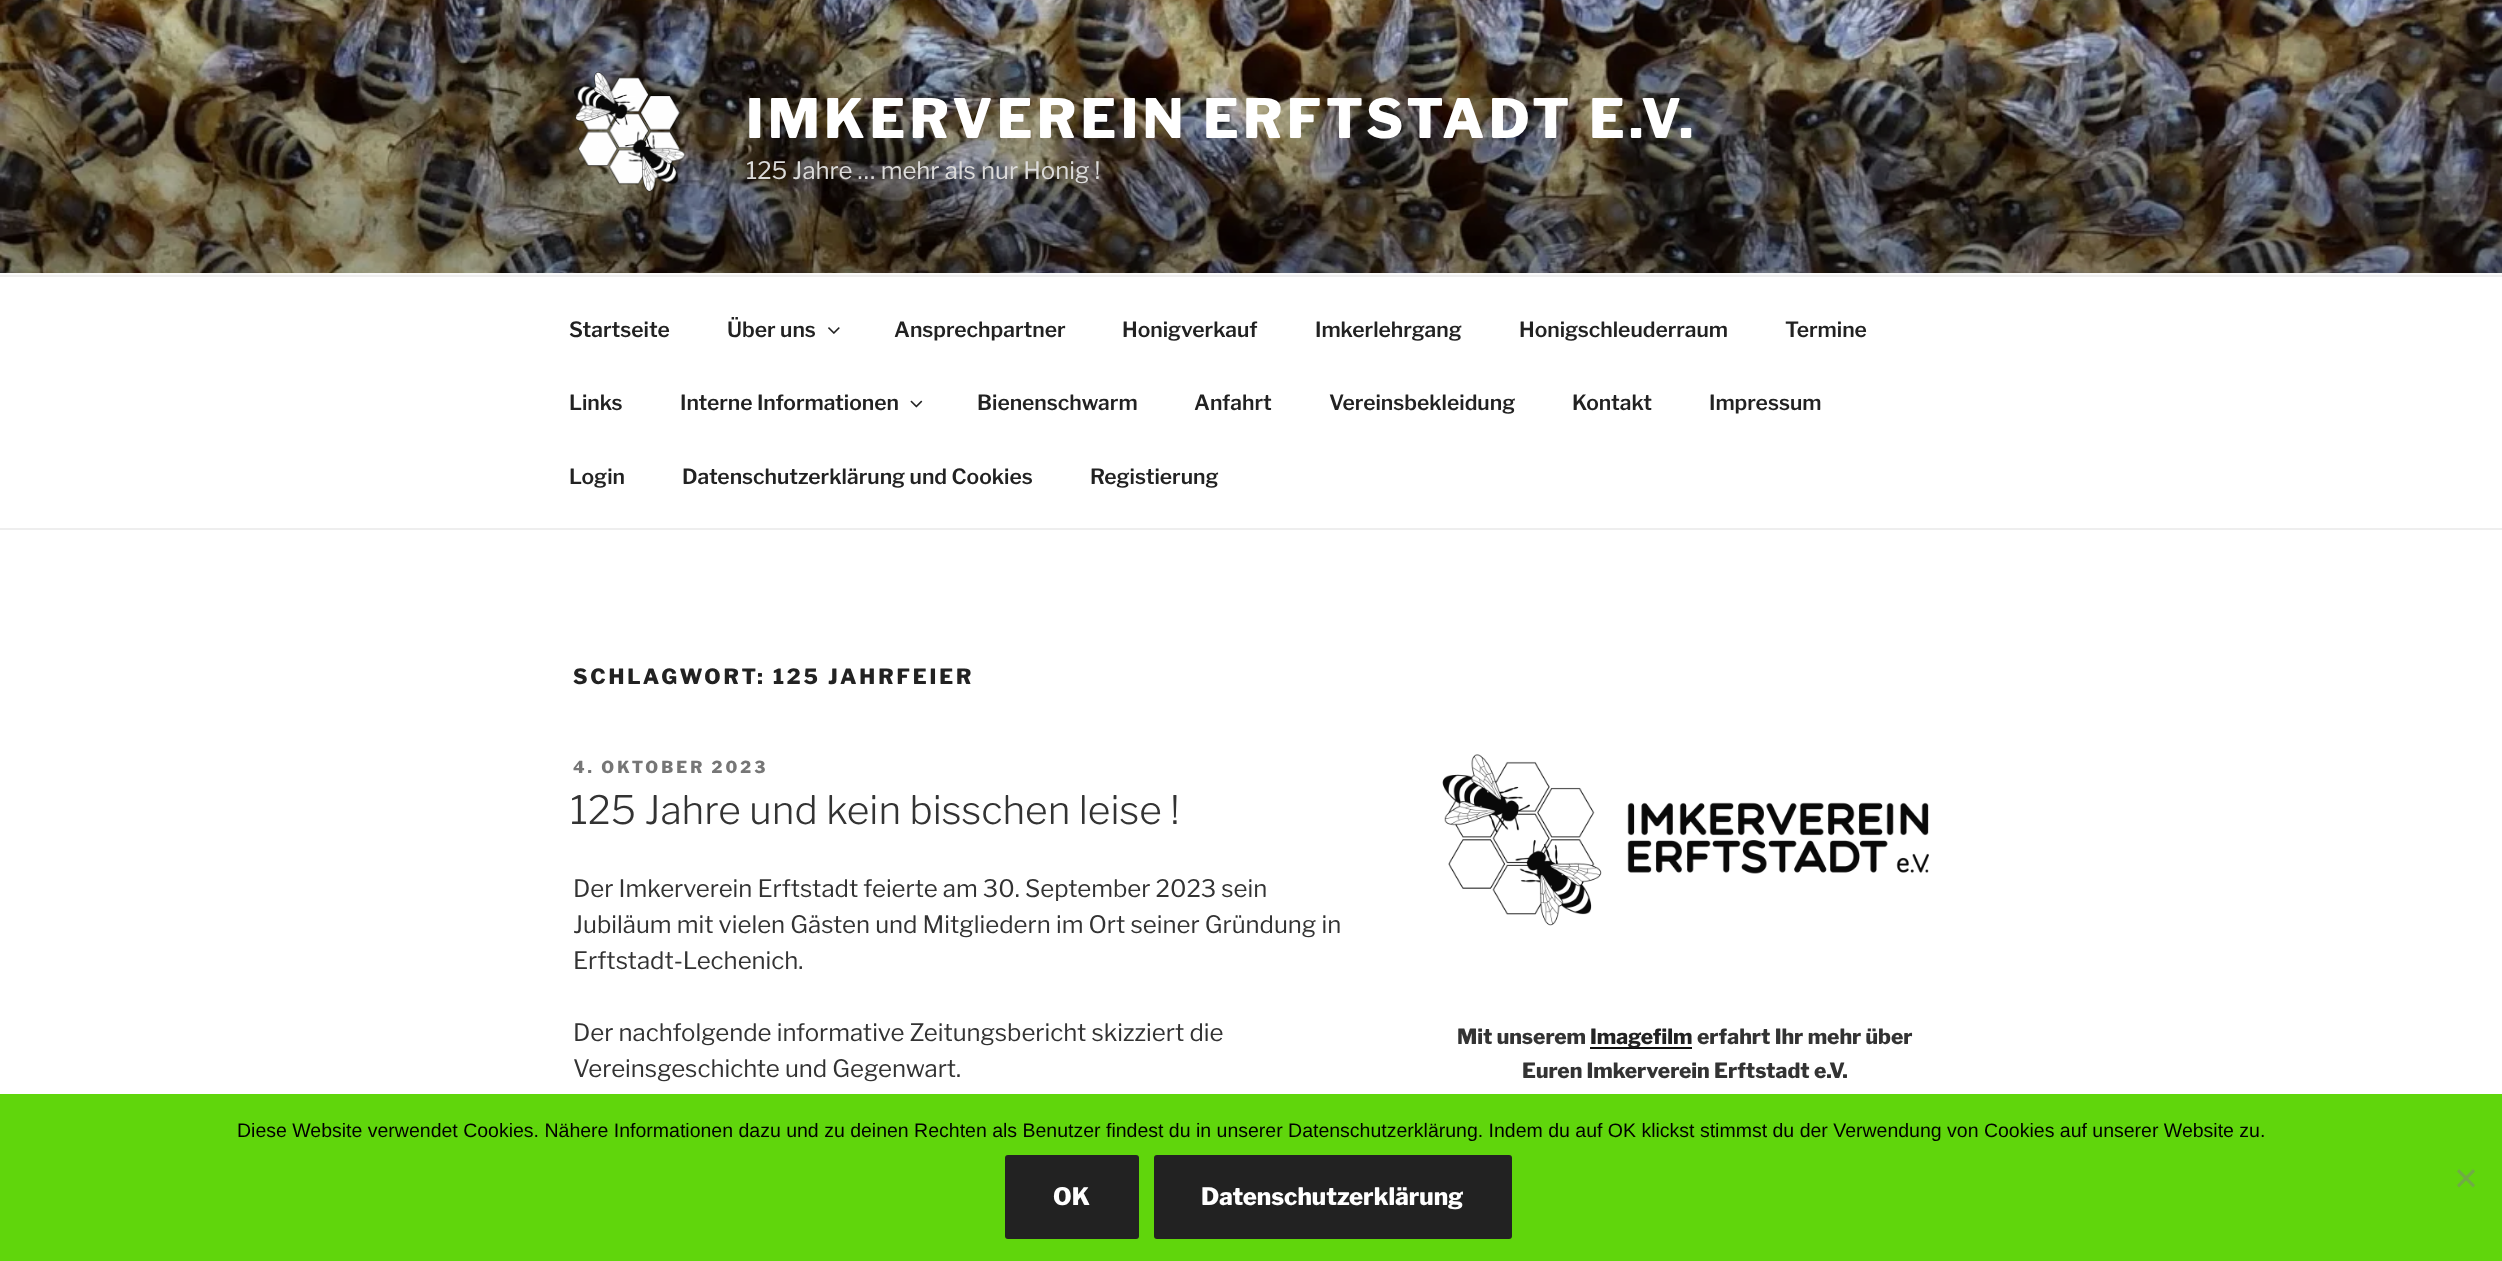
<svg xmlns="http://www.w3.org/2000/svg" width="2502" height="1261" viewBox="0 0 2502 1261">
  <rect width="100%" height="100%" fill="rgb(255,255,255)"/>
  <rect x="0" y="273" width="2502" height="2" fill="rgb(250,250,250)"/>
  <image x="0" y="0" width="2502" height="273" href="pic1.png"/>
  <image x="574" y="72" width="112" height="120" href="pic2.png"/>
  <text x="746" y="138" font-family="Libre Franklin" font-size="54" font-weight="100" letter-spacing="4.3" fill="rgb(255,255,255)">IMKERVEREIN ERFTSTADT E.V.</text>
  <text x="746" y="179" font-family="'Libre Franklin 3'" font-size="24" font-weight="100" fill="rgb(220,219,218)">125 Jahre … mehr als nur Honig !</text>
  <rect x="0" y="275" width="2502" height="2" fill="rgb(238,238,238)"/>
  <rect x="0" y="528" width="2502" height="2" fill="rgb(238,238,238)"/>
  <g font-family="'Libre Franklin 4'" font-size="21" font-weight="100" fill="rgb(34,34,34)">
    <text x="569" y="337">Startseite</text>
    <text x="727" y="337">Über uns</text>
  </g>
  <image x="828" y="327" width="12" height="7" href="pic3.png"/>
  <g font-family="'Libre Franklin 4'" font-size="21" font-weight="100" fill="rgb(34,34,34)">
    <text x="894" y="337">Ansprechpartner</text>
    <text x="1122" y="337">Honigverkauf</text>
    <text x="1315" y="337">Imkerlehrgang</text>
    <text x="1519" y="337">Honigschleuderraum</text>
    <text x="1785" y="337">Termine</text>
    <text x="569" y="410">Links</text>
    <text x="680" y="410">Interne Informationen</text>
  </g>
  <image x="910" y="400" width="13" height="8" href="pic4.png"/>
  <g font-family="'Libre Franklin 4'" font-size="21" font-weight="100" fill="rgb(34,34,34)">
    <text x="977" y="410">Bienenschwarm</text>
    <text x="1194" y="410">Anfahrt</text>
    <text x="1329" y="410">Vereinsbekleidung</text>
    <text x="1572" y="410">Kontakt</text>
    <text x="1709" y="410">Impressum</text>
    <text x="569" y="484">Login</text>
    <text x="682" y="484">Datenschutzerklärung und Cookies</text>
    <text x="1090" y="484">Registierung</text>
  </g>
  <text x="573" y="684" font-family="Libre Franklin" font-size="21" font-weight="100" letter-spacing="2.9" fill="rgb(34,34,34)">SCHLAGWORT: 125 JAHRFEIER</text>
  <text x="573" y="773" font-family="Libre Franklin" font-size="16.5" font-weight="100" letter-spacing="3" fill="rgb(118,118,118)">4. OKTOBER 2023</text>
  <text x="570" y="824" font-family="'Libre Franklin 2'" font-size="39" font-weight="100" fill="rgb(51,51,51)">125 Jahre und kein bisschen leise !</text>
  <g font-family="'Libre Franklin 3'" font-size="24" font-weight="100" fill="rgb(51,51,51)">
    <text>
      <tspan x="573" y="897">Der Imkerverein Erftstadt feierte am 30. September 2023 sein</tspan>
      <tspan x="573" y="933">Jubiläum mit vielen Gästen und Mitgliedern im Ort seiner Gründung in</tspan>
      <tspan x="573" y="969">Erftstadt-Lechenich.</tspan>
    </text>
    <text>
      <tspan x="573" y="1041">Der nachfolgende informative Zeitungsbericht skizziert die</tspan>
      <tspan x="573" y="1077">Vereinsgeschichte und Gegenwart.</tspan>
    </text>
  </g>
  <image x="1442" y="754" width="487" height="172" href="pic5.png"/>
  <text x="1457" y="1044" font-family="Libre Franklin" font-size="21" font-weight="100" fill="rgb(51,51,51)">Mit unserem</text>
  <rect x="1590" y="1047" width="102" height="2" fill="rgb(15,15,15)"/>
  <text x="1590" y="1044" font-family="Libre Franklin" font-size="21" font-weight="100" fill="rgb(34,34,34)">Imagefilm</text>
  <g font-family="Libre Franklin" font-size="21" font-weight="100" fill="rgb(51,51,51)">
    <text x="1697" y="1044">erfahrt Ihr mehr über</text>
    <text x="1522" y="1078">Euren Imkerverein Erftstadt e.V.</text>
  </g>
  <rect x="0" y="1094" width="2502" height="167" fill="rgb(96,214,12)"/>
  <text x="237" y="1137" font-family="Liberation Sans" font-size="19.5" fill="rgb(0,0,0)">Diese Website verwendet Cookies. Nähere Informationen dazu und zu deinen Rechten als Benutzer findest du in unserer Datenschutzerklärung. Indem du auf OK klickst stimmst du der Verwendung von Cookies auf unserer Website zu.</text>
  <path d="M2473 1169L2475 1171.5L2459 1187.5L2457 1185Z" fill="rgb(112,171,70)"/>
  <path d="M2457 1171.5L2459 1169L2475 1185L2473 1187.5Z" fill="rgb(112,171,70)"/>
  <rect x="1005" y="1155" width="134" height="84" rx="3" fill="rgb(34,34,34)"/>
  <text x="1053" y="1205" font-family="Libre Franklin" font-size="24" font-weight="100" fill="rgb(255,255,255)">OK</text>
  <rect x="1154" y="1155" width="358" height="84" rx="3" fill="rgb(34,34,34)"/>
  <text x="1201" y="1205" font-family="Libre Franklin" font-size="24" font-weight="100" fill="rgb(255,255,255)">Datenschutzerklärung</text>
</svg>
